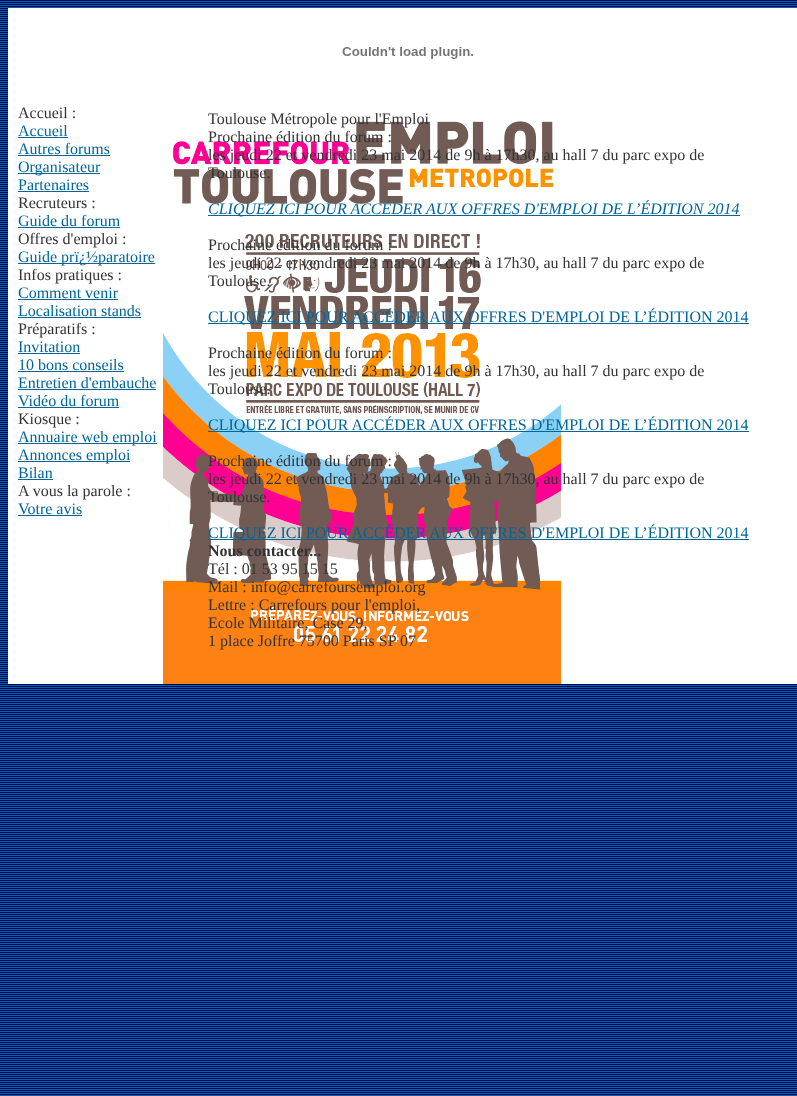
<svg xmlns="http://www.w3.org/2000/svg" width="797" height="1096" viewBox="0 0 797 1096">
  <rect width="100%" height="100%" fill="rgb(0,102,153)"/>
  <image x="0" y="0" width="797" height="1095" href="pic1.png"/>
  <rect x="8" y="8" width="789" height="86" fill="rgb(255,255,255)"/>
  <image x="342" y="47" width="131" height="12" href="pic2.png"/>
  <image x="8" y="94" width="789" height="590" href="pic3.png"/>
  <text x="18" y="118" font-family="Liberation Serif" font-size="16" fill="rgb(51,51,51)">Accueil :</text>
  <text x="18" y="136" font-family="Liberation Serif" font-size="16" fill="rgb(0,102,153)">Accueil</text>
  <rect x="18" y="137" width="50" height="1" fill="rgb(0,102,153)"/>
  <text x="18" y="154" font-family="Liberation Serif" font-size="16" fill="rgb(0,102,153)">Autres forums</text>
  <rect x="18" y="155" width="92" height="1" fill="rgb(0,102,153)"/>
  <rect x="18" y="173" width="82" height="1" fill="rgb(0,102,153)"/>
  <g font-family="Liberation Serif" font-size="16" fill="rgb(0,102,153)">
    <text>
      <tspan x="18" y="172">Organisateur</tspan>
      <tspan x="18" y="190">Partenaires</tspan>
    </text>
  </g>
  <rect x="18" y="191" width="71" height="1" fill="rgb(0,102,153)"/>
  <text x="18" y="208" font-family="Liberation Serif" font-size="16" fill="rgb(51,51,51)">Recruteurs :</text>
  <text x="18" y="226" font-family="Liberation Serif" font-size="16" fill="rgb(0,102,153)">Guide du forum</text>
  <rect x="18" y="227" width="102" height="1" fill="rgb(0,102,153)"/>
  <text x="18" y="244" font-family="Liberation Serif" font-size="16" fill="rgb(51,51,51)">Offres d'emploi :</text>
  <rect x="18" y="263" width="137" height="1" fill="rgb(0,102,153)"/>
  <text x="18" y="262" font-family="Liberation Serif" font-size="16" fill="rgb(0,102,153)">Guide prï¿½paratoire</text>
  <text x="18" y="280" font-family="Liberation Serif" font-size="16" fill="rgb(51,51,51)">Infos pratiques :</text>
  <text x="18" y="298" font-family="Liberation Serif" font-size="16" fill="rgb(0,102,153)">Comment venir</text>
  <rect x="18" y="299" width="100" height="1" fill="rgb(0,102,153)"/>
  <text x="18" y="316" font-family="Liberation Serif" font-size="16" fill="rgb(0,102,153)">Localisation stands</text>
  <rect x="18" y="317" width="123" height="1" fill="rgb(0,102,153)"/>
  <text x="18" y="334" font-family="Liberation Serif" font-size="16" fill="rgb(51,51,51)">Préparatifs :</text>
  <text x="18" y="352" font-family="Liberation Serif" font-size="16" fill="rgb(0,102,153)">Invitation</text>
  <rect x="18" y="353" width="62" height="1" fill="rgb(0,102,153)"/>
  <text x="18" y="370" font-family="Liberation Serif" font-size="16" fill="rgb(0,102,153)">10 bons conseils</text>
  <rect x="18" y="371" width="106" height="1" fill="rgb(0,102,153)"/>
  <text x="18" y="388" font-family="Liberation Serif" font-size="16" fill="rgb(0,102,153)">Entretien d'embauche</text>
  <rect x="18" y="389" width="138" height="1" fill="rgb(0,102,153)"/>
  <text x="18" y="406" font-family="Liberation Serif" font-size="16" fill="rgb(0,102,153)">Vidéo du forum</text>
  <rect x="18" y="407" width="101" height="1" fill="rgb(0,102,153)"/>
  <text x="18" y="424" font-family="Liberation Serif" font-size="16" fill="rgb(51,51,51)">Kiosque :</text>
  <rect x="18" y="443" width="139" height="1" fill="rgb(0,102,153)"/>
  <text x="18" y="442" font-family="Liberation Serif" font-size="16" fill="rgb(0,102,153)">Annuaire web emploi</text>
  <rect x="18" y="461" width="112" height="1" fill="rgb(0,102,153)"/>
  <g font-family="Liberation Serif" font-size="16" fill="rgb(0,102,153)">
    <text>
      <tspan x="18" y="460">Annonces emploi</tspan>
      <tspan x="18" y="478">Bilan</tspan>
    </text>
  </g>
  <rect x="18" y="479" width="35" height="1" fill="rgb(0,102,153)"/>
  <text x="18" y="496" font-family="Liberation Serif" font-size="16" fill="rgb(51,51,51)">A vous la parole :</text>
  <text x="18" y="514" font-family="Liberation Serif" font-size="16" fill="rgb(0,102,153)">Votre avis</text>
  <rect x="18" y="515" width="64" height="1" fill="rgb(0,102,153)"/>
  <g font-family="Liberation Serif" font-size="16" fill="rgb(51,51,51)">
    <text>
      <tspan x="208" y="124">Toulouse Métropole pour l'Emploi</tspan>
      <tspan x="208" y="142">Prochaine édition du forum :</tspan>
      <tspan x="208" y="160">les jeudi 22 et vendredi 23 mai 2014 de 9h à 17h30, au hall 7 du parc expo de</tspan>
      <tspan x="208" y="178">Toulouse.</tspan>
    </text>
  </g>
  <rect x="208" y="215" width="532" height="1" fill="rgb(0,102,153)"/>
  <text x="208" y="214" font-family="Liberation Serif" font-size="16" font-style="italic" fill="rgb(0,102,153)">CLIQUEZ ICI POUR ACCÉDER AUX OFFRES D'EMPLOI DE L’ÉDITION 2014</text>
  <g font-family="Liberation Serif" font-size="16" fill="rgb(51,51,51)">
    <text>
      <tspan x="208" y="250">Prochaine édition du forum :</tspan>
      <tspan x="208" y="268">les jeudi 22 et vendredi 23 mai 2014 de 9h à 17h30, au hall 7 du parc expo de</tspan>
      <tspan x="208" y="286">Toulouse.</tspan>
    </text>
  </g>
  <rect x="208" y="323" width="541" height="1" fill="rgb(0,102,153)"/>
  <text x="208" y="322" font-family="Liberation Serif" font-size="16" fill="rgb(0,102,153)">CLIQUEZ ICI POUR ACCÉDER AUX OFFRES D'EMPLOI DE L’ÉDITION 2014</text>
  <g font-family="Liberation Serif" font-size="16" fill="rgb(51,51,51)">
    <text>
      <tspan x="208" y="358">Prochaine édition du forum :</tspan>
      <tspan x="208" y="376">les jeudi 22 et vendredi 23 mai 2014 de 9h à 17h30, au hall 7 du parc expo de</tspan>
      <tspan x="208" y="394">Toulouse.</tspan>
    </text>
  </g>
  <rect x="208" y="431" width="541" height="1" fill="rgb(0,102,153)"/>
  <text x="208" y="430" font-family="Liberation Serif" font-size="16" fill="rgb(0,102,153)">CLIQUEZ ICI POUR ACCÉDER AUX OFFRES D'EMPLOI DE L’ÉDITION 2014</text>
  <g font-family="Liberation Serif" font-size="16" fill="rgb(51,51,51)">
    <text>
      <tspan x="208" y="466">Prochaine édition du forum :</tspan>
      <tspan x="208" y="484">les jeudi 22 et vendredi 23 mai 2014 de 9h à 17h30, au hall 7 du parc expo de</tspan>
      <tspan x="208" y="502">Toulouse.</tspan>
    </text>
  </g>
  <rect x="208" y="539" width="541" height="1" fill="rgb(0,102,153)"/>
  <text x="208" y="538" font-family="Liberation Serif" font-size="16" fill="rgb(0,102,153)">CLIQUEZ ICI POUR ACCÉDER AUX OFFRES D'EMPLOI DE L’ÉDITION 2014</text>
  <text x="208" y="556" font-family="Liberation Serif" font-size="16" font-weight="bold" fill="rgb(51,51,51)">Nous contacter...</text>
  <g font-family="Liberation Serif" font-size="16" fill="rgb(51,51,51)">
    <text>
      <tspan x="208" y="574">Tél : 01 53 95 15 15</tspan>
      <tspan x="208" y="592">Mail : info@carrefoursemploi.org</tspan>
      <tspan x="208" y="610">Lettre : Carrefours pour l'emploi,</tspan>
      <tspan x="208" y="628">Ecole Militaire, Case 29,</tspan>
      <tspan x="208" y="646">1 place Joffre 75700 Paris SP 07</tspan>
    </text>
  </g>
</svg>
